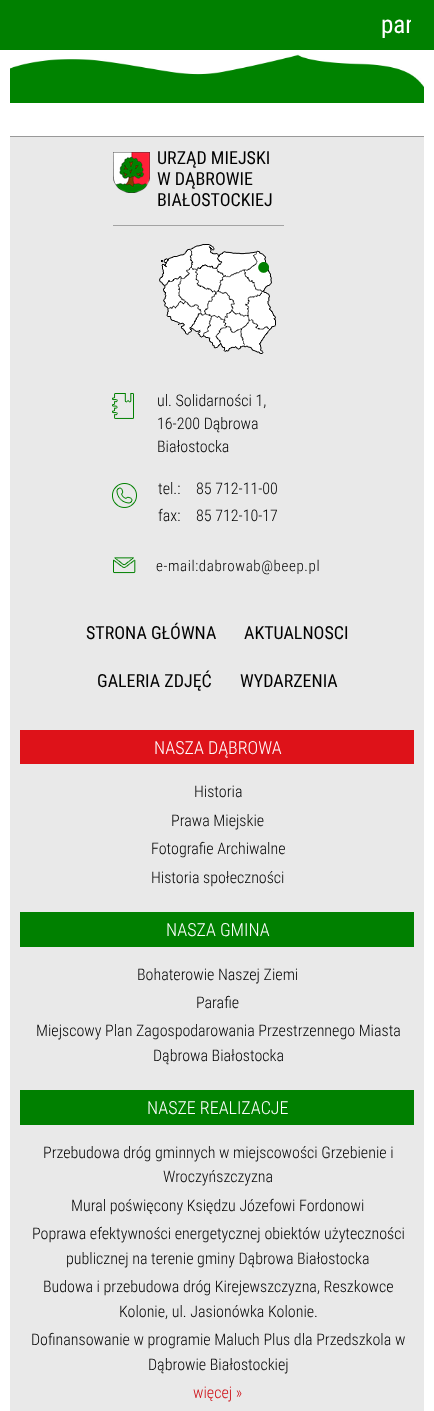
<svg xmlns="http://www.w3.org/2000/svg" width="434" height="1411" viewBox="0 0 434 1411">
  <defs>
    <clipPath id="clip1"><rect x="381" y="10" width="30" height="30"/></clipPath>
  </defs>
  <rect width="100%" height="100%" fill="rgb(255,255,255)"/>
  <rect x="0" y="0" width="434" height="50" fill="rgb(0,128,0)"/>
  <g clip-path="url(#clip1)">
    <text x="381" y="33" font-family="Roboto Condensed" font-size="25" fill="rgb(255,255,255)">pan</text>
  </g>
  <image x="10" y="53" width="414" height="50" href="pic1.png"/>
  <rect x="10" y="137" width="414" height="1274" fill="rgb(233,233,233)"/>
  <rect x="10" y="136" width="414" height="1" fill="rgb(153,153,153)"/>
  <image x="113" y="152" width="37" height="41" href="pic2.png"/>
  <g font-family="Roboto Condensed" font-size="18" fill="rgb(0,0,0)">
    <text>
      <tspan x="157" y="164">URZĄD MIEJSKI</tspan>
      <tspan x="157" y="185">W DĄBROWIE</tspan>
      <tspan x="157" y="206">BIAŁOSTOCKIEJ</tspan>
    </text>
  </g>
  <rect x="113" y="225" width="171" height="1" fill="rgb(163,163,163)"/>
  <image x="159" y="244" width="117" height="110" href="pic3.png"/>
  <image x="112" y="393" width="22" height="26" href="pic4.png"/>
  <g font-family="Roboto Condensed" font-size="16" font-weight="300" fill="rgb(0,0,0)">
    <text>
      <tspan x="157" y="406">ul. Solidarności 1,</tspan>
      <tspan x="157" y="429">16-200 Dąbrowa</tspan>
      <tspan x="157" y="452">Białostocka</tspan>
    </text>
  </g>
  <image x="112" y="483" width="25" height="25" href="pic5.png"/>
  <g font-family="Roboto Condensed" font-size="16" font-weight="300" fill="rgb(0,0,0)">
    <text x="158" y="494">tel.:</text>
    <text x="196" y="494">85 712-11-00</text>
    <text x="158" y="521">fax:</text>
    <text x="196" y="521">85 712-10-17</text>
  </g>
  <image x="113" y="557" width="23" height="17" href="pic6.png"/>
  <text x="156" y="571" font-family="Roboto Condensed" font-size="15" font-weight="300" letter-spacing="0.6" fill="rgb(0,0,0)">e-mail:dabrowab@beep.pl</text>
  <g font-family="Roboto Condensed" font-size="18" fill="rgb(0,0,0)">
    <text x="86" y="639">STRONA GŁÓWNA</text>
    <text x="244" y="639">AKTUALNOSCI</text>
    <text x="97" y="687">GALERIA ZDJĘĆ</text>
    <text x="240" y="687">WYDARZENIA</text>
  </g>
  <rect x="20" y="730" width="394" height="34" fill="rgb(222,18,25)"/>
  <text x="154" y="754" font-family="Roboto Condensed" font-size="18" font-weight="300" fill="rgb(255,255,255)">NASZA DĄBROWA</text>
  <g font-family="Roboto Condensed" font-size="16" font-weight="300" fill="rgb(0,0,0)">
    <text x="194" y="797">Historia</text>
    <text x="171" y="826">Prawa Miejskie</text>
    <text>
      <tspan x="151" y="854">Fotografie Archiwalne</tspan>
      <tspan x="151" y="883">Historia społeczności</tspan>
    </text>
  </g>
  <rect x="20" y="912" width="394" height="35" fill="rgb(0,128,0)"/>
  <text x="166" y="936" font-family="Roboto Condensed" font-size="18" font-weight="300" fill="rgb(255,255,255)">NASZA GMINA</text>
  <g font-family="Roboto Condensed" font-size="16" font-weight="300" fill="rgb(0,0,0)">
    <text x="137" y="980">Bohaterowie Naszej Ziemi</text>
    <text x="196" y="1008">Parafie</text>
    <text x="36" y="1036">Miejscowy Plan Zagospodarowania Przestrzennego Miasta</text>
    <text x="153" y="1061">Dąbrowa Białostocka</text>
  </g>
  <rect x="20" y="1090" width="394" height="35" fill="rgb(0,128,0)"/>
  <text x="147" y="1114" font-family="Roboto Condensed" font-size="18" font-weight="300" fill="rgb(255,255,255)">NASZE REALIZACJE</text>
  <g font-family="Roboto Condensed" font-size="16" font-weight="300" fill="rgb(0,0,0)">
    <text x="43" y="1158">Przebudowa dróg gminnych w miejscowości Grzebienie i</text>
    <text x="163" y="1182">Wroczyńszczyzna</text>
    <text x="71" y="1211">Mural poświęcony Księdzu Józefowi Fordonowi</text>
    <text x="32" y="1239">Poprawa efektywności energetycznej obiektów użyteczności</text>
    <text x="66" y="1264">publicznej na terenie gminy Dąbrowa Białostocka</text>
    <text x="43" y="1292">Budowa i przebudowa dróg Kirejewszczyzna, Reszkowce</text>
    <text x="119" y="1317">Kolonie, ul. Jasionówka Kolonie.</text>
    <text x="31" y="1345">Dofinansowanie w programie Maluch Plus dla Przedszkola w</text>
    <text x="148" y="1370">Dąbrowie Białostockiej</text>
  </g>
  <text x="193" y="1398" font-family="Roboto Condensed" font-size="16" font-weight="300" fill="rgb(206,13,20)">więcej »</text>
</svg>
